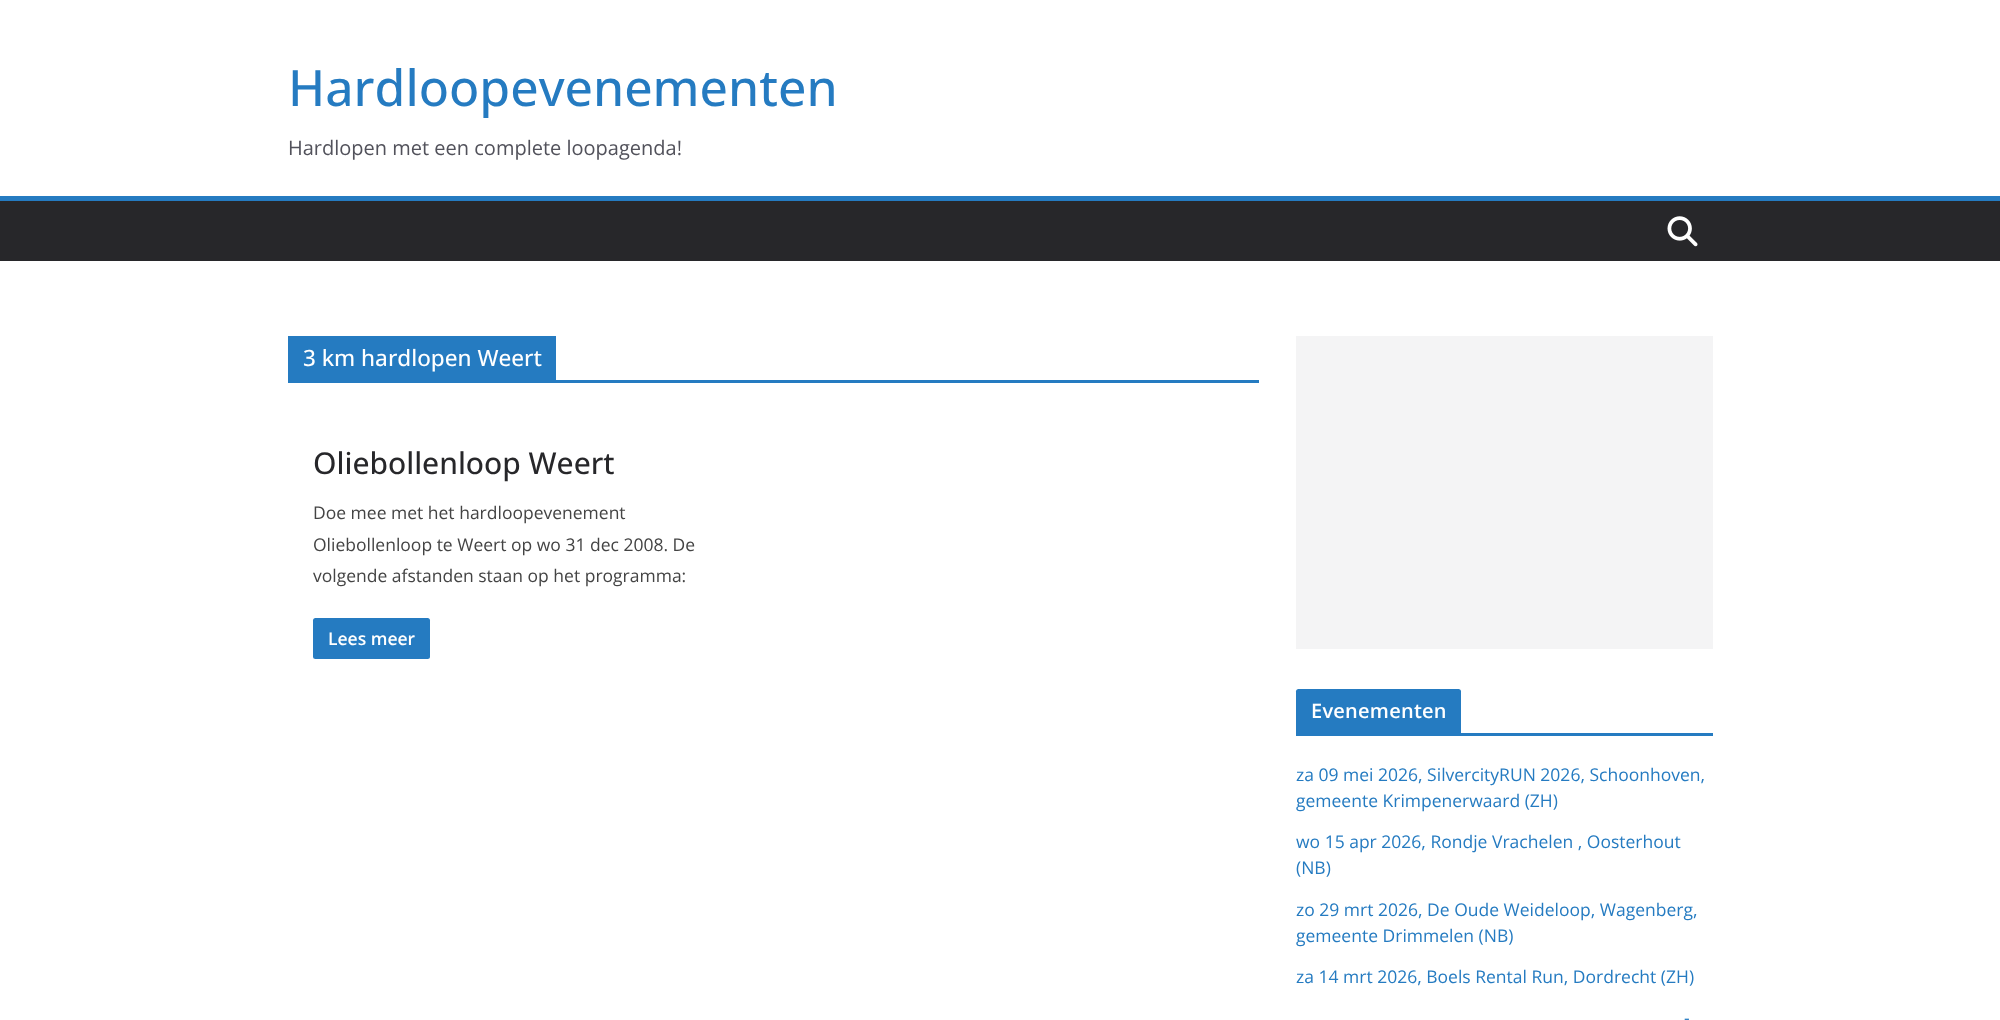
<svg xmlns="http://www.w3.org/2000/svg" width="2000" height="1020" viewBox="0 0 2000 1020">
  <rect width="100%" height="100%" fill="rgb(255,255,255)"/>
  <text x="288" y="106" font-family="Open Sans" font-size="50" font-weight="500" fill="rgb(37,123,193)">Hardloopevenementen</text>
  <text x="288" y="155" font-family="Open Sans" font-size="20" fill="rgb(82,82,91)">Hardlopen met een complete loopagenda!</text>
  <rect x="0" y="201" width="2000" height="60" fill="rgb(39,39,42)"/>
  <rect x="0" y="196" width="2000" height="5" fill="rgb(37,123,193)"/>
  <image x="1667" y="216" width="31" height="31" href="pic1.png"/>
  <rect x="288" y="380" width="971" height="3" fill="rgb(37,123,193)"/>
  <rect x="288" y="336" width="268" height="44" fill="rgb(37,123,193)"/>
  <text x="303" y="366" font-family="Open Sans" font-size="22.5" font-weight="500" fill="rgb(255,255,255)">3 km hardlopen Weert</text>
  <text x="313" y="474" font-family="Open Sans" font-size="30" font-weight="500" fill="rgb(39,39,42)">Oliebollenloop Weert</text>
  <g font-family="Open Sans" font-size="17.5" fill="rgb(68,68,68)">
    <text>
      <tspan x="313" y="519">Doe mee met het hardloopevenement</tspan>
      <tspan x="313" y="551">Oliebollenloop te Weert op wo 31 dec 2008. De</tspan>
      <tspan x="313" y="582">volgende afstanden staan op het programma:</tspan>
    </text>
  </g>
  <rect x="313" y="618" width="117" height="41" rx="2.5" fill="rgb(37,123,193)"/>
  <text x="328" y="645" font-family="Open Sans" font-size="17.5" font-weight="600" fill="rgb(255,255,255)">Lees meer</text>
  <rect x="1296" y="336" width="417" height="313" fill="rgb(244,244,245)"/>
  <rect x="1296" y="733" width="417" height="3" fill="rgb(37,123,193)"/>
  <path d="M1298.5 689H1458.5C1460 689 1461 690 1461 691.5V733H1296V691.5C1296 690 1297 689 1298.5 689Z" fill="rgb(37,123,193)"/>
  <text x="1311" y="718" font-family="Open Sans" font-size="20" font-weight="600" letter-spacing="0.25" fill="rgb(255,255,255)">Evenementen</text>
  <g font-family="Open Sans" font-size="17.5" fill="rgb(37,123,193)">
    <text>
      <tspan x="1296" y="781">za 09 mei 2026, SilvercityRUN 2026, Schoonhoven,</tspan>
      <tspan x="1296" y="807">gemeente Krimpenerwaard (ZH)</tspan>
    </text>
    <text>
      <tspan x="1296" y="848">wo 15 apr 2026, Rondje Vrachelen , Oosterhout</tspan>
      <tspan x="1296" y="874">(NB)</tspan>
    </text>
    <text>
      <tspan x="1296" y="916">zo 29 mrt 2026, De Oude Weideloop, Wagenberg,</tspan>
      <tspan x="1296" y="942">gemeente Drimmelen (NB)</tspan>
    </text>
    <text x="1296" y="983">za 14 mrt 2026, Boels Rental Run, Dordrecht (ZH)</text>
    <text x="1684" y="1024">-</text>
  </g>
</svg>
